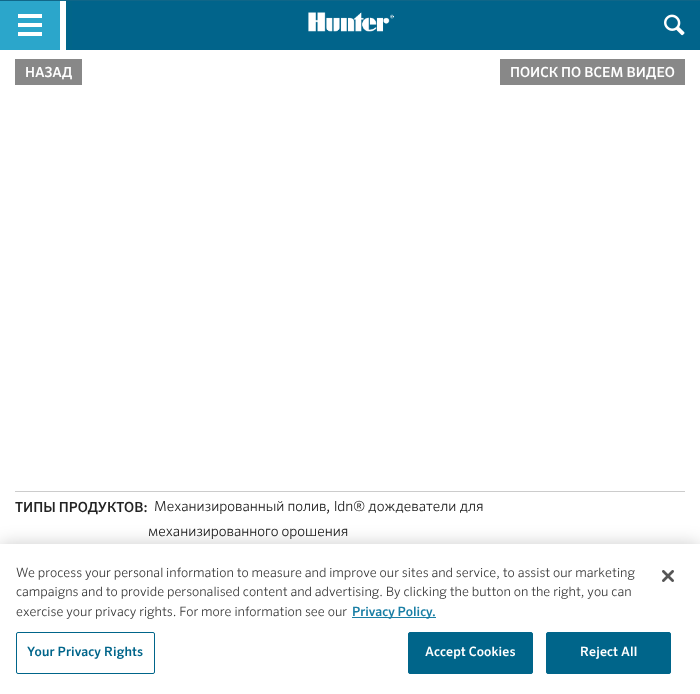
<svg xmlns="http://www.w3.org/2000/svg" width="700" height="694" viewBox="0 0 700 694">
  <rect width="100%" height="100%" fill="rgb(255,255,255)"/>
  <image x="60" y="0" width="640" height="50" href="pic1.png"/>
  <rect x="0" y="0" width="60" height="50" fill="rgb(43,166,203)"/>
  <rect x="18" y="23" width="24" height="4" fill="rgb(255,255,255)"/>
  <rect x="18" y="14" width="24" height="4" fill="rgb(255,255,255)"/>
  <rect x="18" y="32" width="24" height="4" fill="rgb(255,255,255)"/>
  <image x="308" y="12" width="86" height="20" href="pic2.png"/>
  <image x="664" y="14" width="21" height="22" href="pic3.png"/>
  <rect x="0" y="0" width="700" height="1" fill="rgba(16,102,136,0.98)"/>
  <rect x="15" y="59" width="67" height="26" fill="rgb(136,136,136)"/>
  <text x="25" y="77" font-family="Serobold" font-size="14" font-weight="500" fill="rgb(255,255,255)">НАЗАД</text>
  <rect x="500" y="59" width="185" height="26" fill="rgb(136,136,136)"/>
  <text x="510" y="77" font-family="Serobold" font-size="14" font-weight="500" fill="rgb(255,255,255)">ПОИСК ПО ВСЕМ ВИДЕО</text>
  <rect x="15" y="491" width="670" height="1" fill="rgb(204,204,204)"/>
  <text x="15" y="512" font-family="Serobold" font-size="14" font-weight="500" fill="rgb(35,35,35)">ТИПЫ ПРОДУКТОВ:</text>
  <text x="154" y="511" font-family="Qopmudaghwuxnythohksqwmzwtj" font-size="14" font-weight="300" fill="rgb(35,35,35)">Механизированный полив</text>
  <text x="326" y="511" font-family="Qopmudaghwuxnythohksqwmzwtj" font-size="16" font-weight="300" fill="rgb(35,35,35)">,</text>
  <g font-family="Qopmudaghwuxnythohksqwmzwtj" font-size="14" font-weight="300" fill="rgb(35,35,35)">
    <text x="334" y="511">ldn® дождеватели для</text>
    <text x="148" y="536">механизированного орошения</text>
  </g>
  <rect x="0" y="544" width="700" height="150" fill="rgba(0,0,0,0.2)" filter="blur(9px)"/>
  <rect x="0" y="544" width="700" height="150" fill="rgb(255,255,255)"/>
  <g font-family="Qopmudaghwuxnythohksqwmzwtj" font-size="13" font-weight="300" fill="rgb(59,59,59)">
    <text>
      <tspan x="16" y="577">We process your personal information to measure and improve our sites and service, to assist our marketing</tspan>
      <tspan x="16" y="596">campaigns and to provide personalised content and advertising. By clicking the button on the right, you can</tspan>
      <tspan x="16" y="616">exercise your privacy rights. For more information see our</tspan>
    </text>
  </g>
  <rect x="352" y="617" width="84" height="1" fill="rgb(27,127,165)"/>
  <text x="352" y="616" font-family="Serobold" font-size="13" font-weight="500" fill="rgb(27,127,165)">Privacy Policy.</text>
  <rect x="16.5" y="632.5" width="138" height="41" rx="1.5" fill="none" stroke="rgb(0,101,138)"/>
  <text x="27" y="656" font-family="Serobold" font-size="13" font-weight="500" letter-spacing="0.1" fill="rgb(0,101,138)">Your Privacy Rights</text>
  <rect x="408.5" y="632.5" width="124" height="41" rx="1.5" fill="rgb(0,101,138)" stroke="rgb(0,101,138)"/>
  <text x="425" y="656" font-family="Serobold" font-size="13" font-weight="500" letter-spacing="0.1" fill="rgb(255,255,255)">Accept Cookies</text>
  <rect x="546.5" y="632.5" width="124" height="41" rx="1.5" fill="rgb(0,101,138)" stroke="rgb(0,101,138)"/>
  <text x="580" y="656" font-family="Serobold" font-size="13" font-weight="500" letter-spacing="0.1" fill="rgb(255,255,255)">Reject All</text>
  <image x="662" y="570" width="12" height="12" href="pic4.png"/>
</svg>
